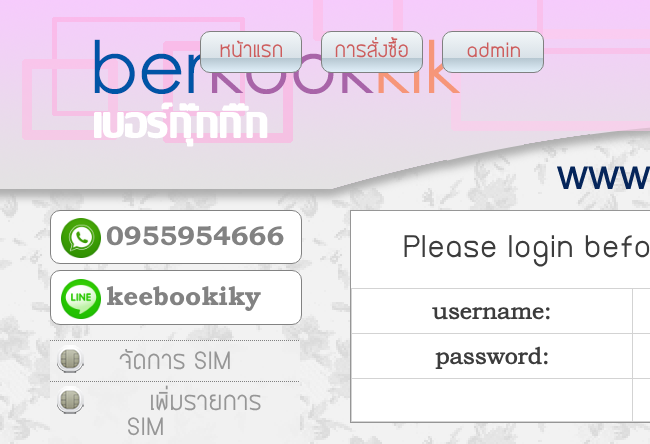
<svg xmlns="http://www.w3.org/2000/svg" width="650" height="444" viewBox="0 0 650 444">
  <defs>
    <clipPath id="clip1"><rect x="200" y="31" width="102" height="42" rx="10"/></clipPath>
    <linearGradient id="g1" gradientUnits="userSpaceOnUse" x1="251" y1="32" x2="251" y2="72"><stop offset="0" stop-color="rgb(242,246,248)"/><stop offset="0.65" stop-color="rgb(216,225,231)"/><stop offset="0.65" stop-color="rgb(181,198,208)"/><stop offset="1" stop-color="rgb(224,239,249)"/></linearGradient>
    <clipPath id="clip2"><rect x="321" y="31" width="102" height="42" rx="10"/></clipPath>
    <linearGradient id="g2" gradientUnits="userSpaceOnUse" x1="372" y1="32" x2="372" y2="72"><stop offset="0" stop-color="rgb(242,246,248)"/><stop offset="0.65" stop-color="rgb(216,225,231)"/><stop offset="0.65" stop-color="rgb(181,198,208)"/><stop offset="1" stop-color="rgb(224,239,249)"/></linearGradient>
    <clipPath id="clip3"><rect x="442" y="31" width="102" height="42" rx="10"/></clipPath>
    <linearGradient id="g3" gradientUnits="userSpaceOnUse" x1="493" y1="32" x2="493" y2="72"><stop offset="0" stop-color="rgb(242,246,248)"/><stop offset="0.65" stop-color="rgb(216,225,231)"/><stop offset="0.65" stop-color="rgb(181,198,208)"/><stop offset="1" stop-color="rgb(224,239,249)"/></linearGradient>
  </defs>
  <rect width="100%" height="100%" fill="rgb(255,255,255)"/>
  <image x="0" y="0" width="650" height="444" href="pic1.png"/>
  <g clip-path="url(#clip1)">
    <rect x="200" y="32" width="102" height="40" fill="url(#g1)"/>
  </g>
  <rect x="200.5" y="31.5" width="101" height="41" rx="9.5" fill="none" stroke="rgb(128,128,128)"/>
  <text x="219" y="57" font-family="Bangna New" font-size="19" font-weight="bold" fill="rgb(205,92,92)">หน้าแรก</text>
  <g clip-path="url(#clip2)">
    <rect x="321" y="32" width="102" height="40" fill="url(#g2)"/>
  </g>
  <rect x="321.5" y="31.5" width="101" height="41" rx="9.5" fill="none" stroke="rgb(128,128,128)"/>
  <text x="334" y="57" font-family="Bangna New" font-size="19" font-weight="bold" fill="rgb(205,92,92)">การสั่งซื้อ</text>
  <g clip-path="url(#clip3)">
    <rect x="442" y="32" width="102" height="40" fill="url(#g3)"/>
  </g>
  <rect x="442.5" y="31.5" width="101" height="41" rx="9.5" fill="none" stroke="rgb(128,128,128)"/>
  <text x="466" y="57" font-family="Bangna New" font-size="19" font-weight="bold" fill="rgb(205,92,92)">admin</text>
  <rect x="50.5" y="210.5" width="251" height="53" rx="9.5" fill="rgb(255,255,255)" stroke="rgb(130,130,130)"/>
  <image x="61" y="218" width="40" height="40" href="pic2.png"/>
  <text x="106" y="245" font-family="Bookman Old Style" font-size="27" font-weight="bold" fill="rgb(130,130,130)">0955954666</text>
  <rect x="351" y="211" width="299" height="210" fill="rgb(255,255,255)"/>
  <rect x="350.5" y="210.5" width="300" height="212" fill="none" stroke="rgb(150,150,150)"/>
  <text x="402" y="257" font-family="Bangna New" font-size="28.75" font-weight="bold" fill="rgb(60,60,60)">Please login befo</text>
  <rect x="351" y="288" width="299" height="1" fill="rgb(211,211,211)"/>
  <rect x="351" y="421" width="299" height="1" fill="rgb(211,211,211)"/>
  <rect x="351" y="288" width="1" height="134" fill="rgb(211,211,211)"/>
  <text x="432" y="319" font-family="'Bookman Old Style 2'" font-size="23" font-weight="bold" fill="rgb(60,60,60)">username:</text>
  <rect x="632" y="333" width="18" height="1" fill="rgb(211,211,211)"/>
  <rect x="632" y="378" width="18" height="1" fill="rgb(211,211,211)"/>
  <rect x="632" y="378" width="1" height="44" fill="rgb(211,211,211)"/>
  <rect x="351" y="378" width="282" height="1" fill="rgb(211,211,211)"/>
  <rect x="632" y="333" width="1" height="46" fill="rgb(211,211,211)"/>
  <rect x="351" y="333" width="282" height="1" fill="rgb(211,211,211)"/>
  <rect x="632" y="288" width="1" height="46" fill="rgb(211,211,211)"/>
  <text x="435" y="364" font-family="'Bookman Old Style 2'" font-size="23" font-weight="bold" fill="rgb(60,60,60)">password:</text>
  <rect x="50.5" y="270.5" width="251" height="54" rx="9.5" fill="rgb(255,255,255)" stroke="rgb(130,130,130)"/>
  <image x="61" y="279" width="40" height="40" href="pic3.png"/>
  <text x="106" y="305" font-family="Bookman Old Style" font-size="26" font-weight="bold" fill="rgb(130,130,130)">keebookiky</text>
  <rect x="50" y="340" width="250" height="104" fill="rgba(240,240,240,0.88)"/>
  <image x="57" y="345" width="27" height="28" href="pic4.png"/>
  <path d="M50 340.5H300" fill="none" stroke="rgb(128,128,128)" stroke-dasharray="1 1"/>
  <path d="M50 381.5H300" fill="none" stroke="rgb(128,128,128)" stroke-dasharray="1 1"/>
  <text x="119" y="369" font-family="Bangna New" font-size="23" font-weight="bold" fill="rgb(150,150,150)">จัดการ SIM</text>
  <image x="57" y="386" width="27" height="28" href="pic5.png"/>
  <g font-family="Bangna New" font-size="23" font-weight="bold" fill="rgb(150,150,150)">
    <text x="149" y="410">เพิ่มรายการ</text>
    <text x="126" y="435">SIM</text>
  </g>
</svg>
